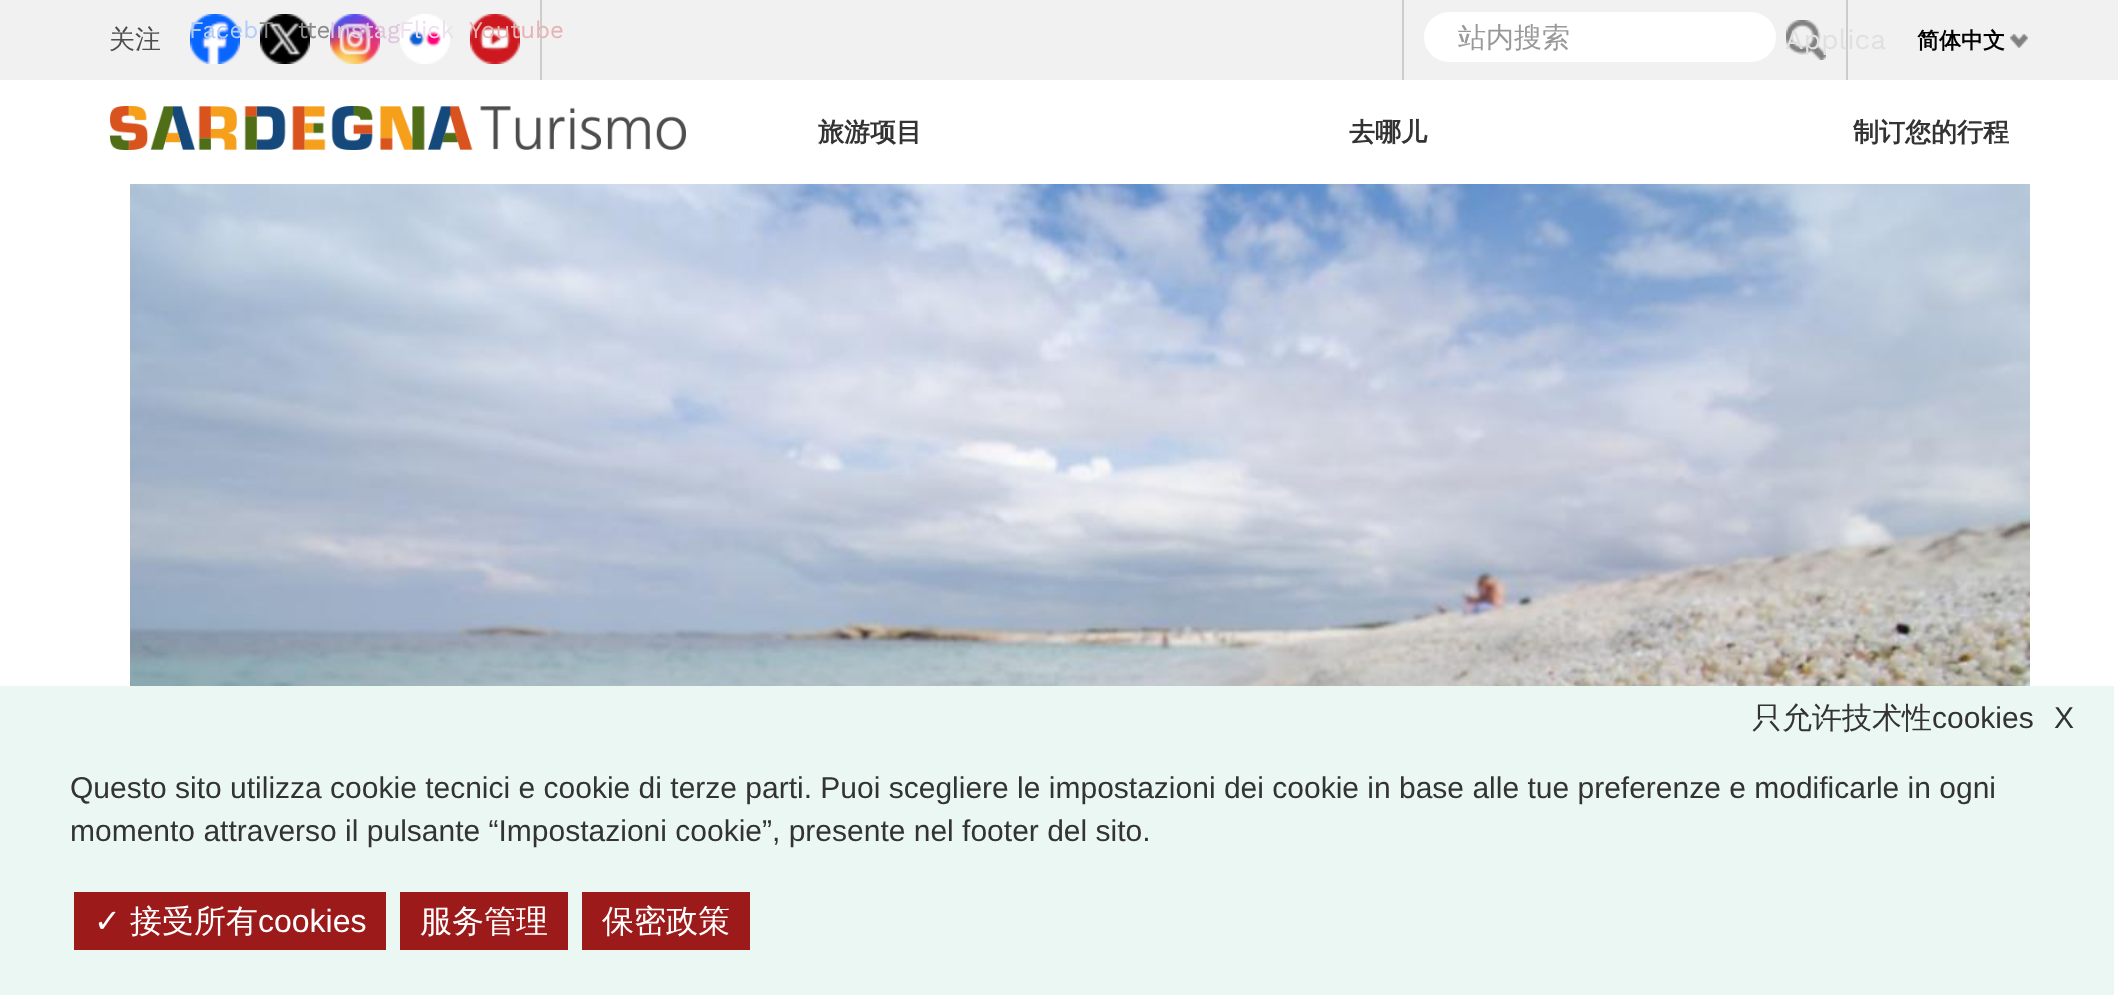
<svg xmlns="http://www.w3.org/2000/svg" width="2118" height="995" viewBox="0 0 2118 995">
  <rect width="100%" height="100%" fill="rgb(255,255,255)"/>
  <rect x="0" y="0" width="2118" height="80" fill="rgb(241,241,241)"/>
  <text x="109" y="48" font-family="WenQuanYi Zen Hei" font-size="26" font-weight="500" fill="rgb(77,77,77)">关注</text>
  <rect x="540" y="0" width="2" height="80" fill="rgb(204,204,204)"/>
  <image x="190" y="14" width="50" height="50" href="pic1.png"/>
  <text x="189" y="38" font-family="Work Sans" font-size="24" fill="rgb(178,204,247)">Facebo</text>
  <image x="260" y="14" width="50" height="50" href="pic2.png"/>
  <g font-family="Work Sans" font-size="24" fill="rgb(138,138,138)">
    <text x="259" y="38">T</text>
    <text x="298" y="38">tte</text>
  </g>
  <image x="330" y="14" width="50" height="50" href="pic3.png"/>
  <text x="329" y="38" font-family="Work Sans" font-size="24" fill="rgb(224,196,221)">Instagr</text>
  <image x="400" y="14" width="50" height="50" href="pic4.png"/>
  <text x="399" y="38" font-family="Work Sans" font-size="24" fill="rgb(237,223,239)">Flick</text>
  <image x="470" y="14" width="50" height="50" href="pic5.png"/>
  <text x="469" y="38" font-family="Work Sans" font-size="24" fill="rgb(231,178,179)">Youtube</text>
  <rect x="1846" y="0" width="2" height="80" fill="rgb(204,204,204)"/>
  <rect x="1402" y="0" width="2" height="80" fill="rgb(204,204,204)"/>
  <rect x="1424" y="12" width="352" height="50" rx="25" fill="rgb(255,255,255)"/>
  <text x="1458" y="47" font-family="WenQuanYi Zen Hei" font-size="28" font-weight="500" fill="rgb(153,153,153)">站内搜索</text>
  <image x="1786" y="20" width="40" height="40" href="pic6.png"/>
  <text x="1785" y="49" font-family="Work Sans" font-size="28" fill="rgb(224,224,224)">Applica</text>
  <text x="1917" y="48" font-family="WenQuanYi Zen Hei" font-size="22" font-weight="bold" fill="rgb(0,0,0)">简体中文</text>
  <image x="2010" y="34" width="18" height="14" href="pic7.png"/>
  <image x="110" y="106" width="576" height="44" href="pic8.png"/>
  <g font-family="WenQuanYi Zen Hei" font-size="26" font-weight="bold" fill="rgb(51,51,51)">
    <text x="818" y="141">旅游项目</text>
    <text x="1349" y="141">去哪儿</text>
    <text x="1853" y="141">制订您的行程</text>
  </g>
  <image x="130" y="184" width="1900" height="502" href="pic9.png"/>
  <rect x="0" y="686" width="2114" height="309" fill="rgb(235,247,243)"/>
  <text x="1752" y="728" font-family="WenQuanYi Zen Hei" font-size="30" font-weight="500" fill="rgb(51,51,51)">只允许技术性</text>
  <g font-family="Liberation Sans" font-size="30" fill="rgb(51,51,51)">
    <text x="1932" y="728">cookies</text>
    <text x="2054" y="728">X</text>
    <text>
      <tspan x="70" y="798">Questo sito utilizza cookie tecnici e cookie di terze parti. Puoi scegliere le impostazioni dei cookie in base alle tue preferenze e modificarle in ogni</tspan>
      <tspan x="70" y="841">momento attraverso il pulsante “Impostazioni cookie”, presente nel footer del sito.</tspan>
    </text>
  </g>
  <rect x="74" y="892" width="312" height="58" fill="rgb(156,26,26)"/>
  <text x="94" y="932" font-family="DejaVu Sans" font-size="32" fill="rgb(255,255,255)">✓</text>
  <text x="130" y="932" font-family="WenQuanYi Zen Hei" font-size="32" font-weight="500" fill="rgb(255,255,255)">接受所有</text>
  <text x="258" y="932" font-family="Liberation Sans" font-size="32" fill="rgb(255,255,255)">cookies</text>
  <rect x="400" y="892" width="168" height="58" fill="rgb(156,26,26)"/>
  <text x="420" y="932" font-family="WenQuanYi Zen Hei" font-size="32" font-weight="500" fill="rgb(255,255,255)">服务管理</text>
  <rect x="582" y="892" width="168" height="58" fill="rgb(156,26,26)"/>
  <text x="602" y="932" font-family="WenQuanYi Zen Hei" font-size="32" font-weight="500" fill="rgb(255,255,255)">保密政策</text>
</svg>
